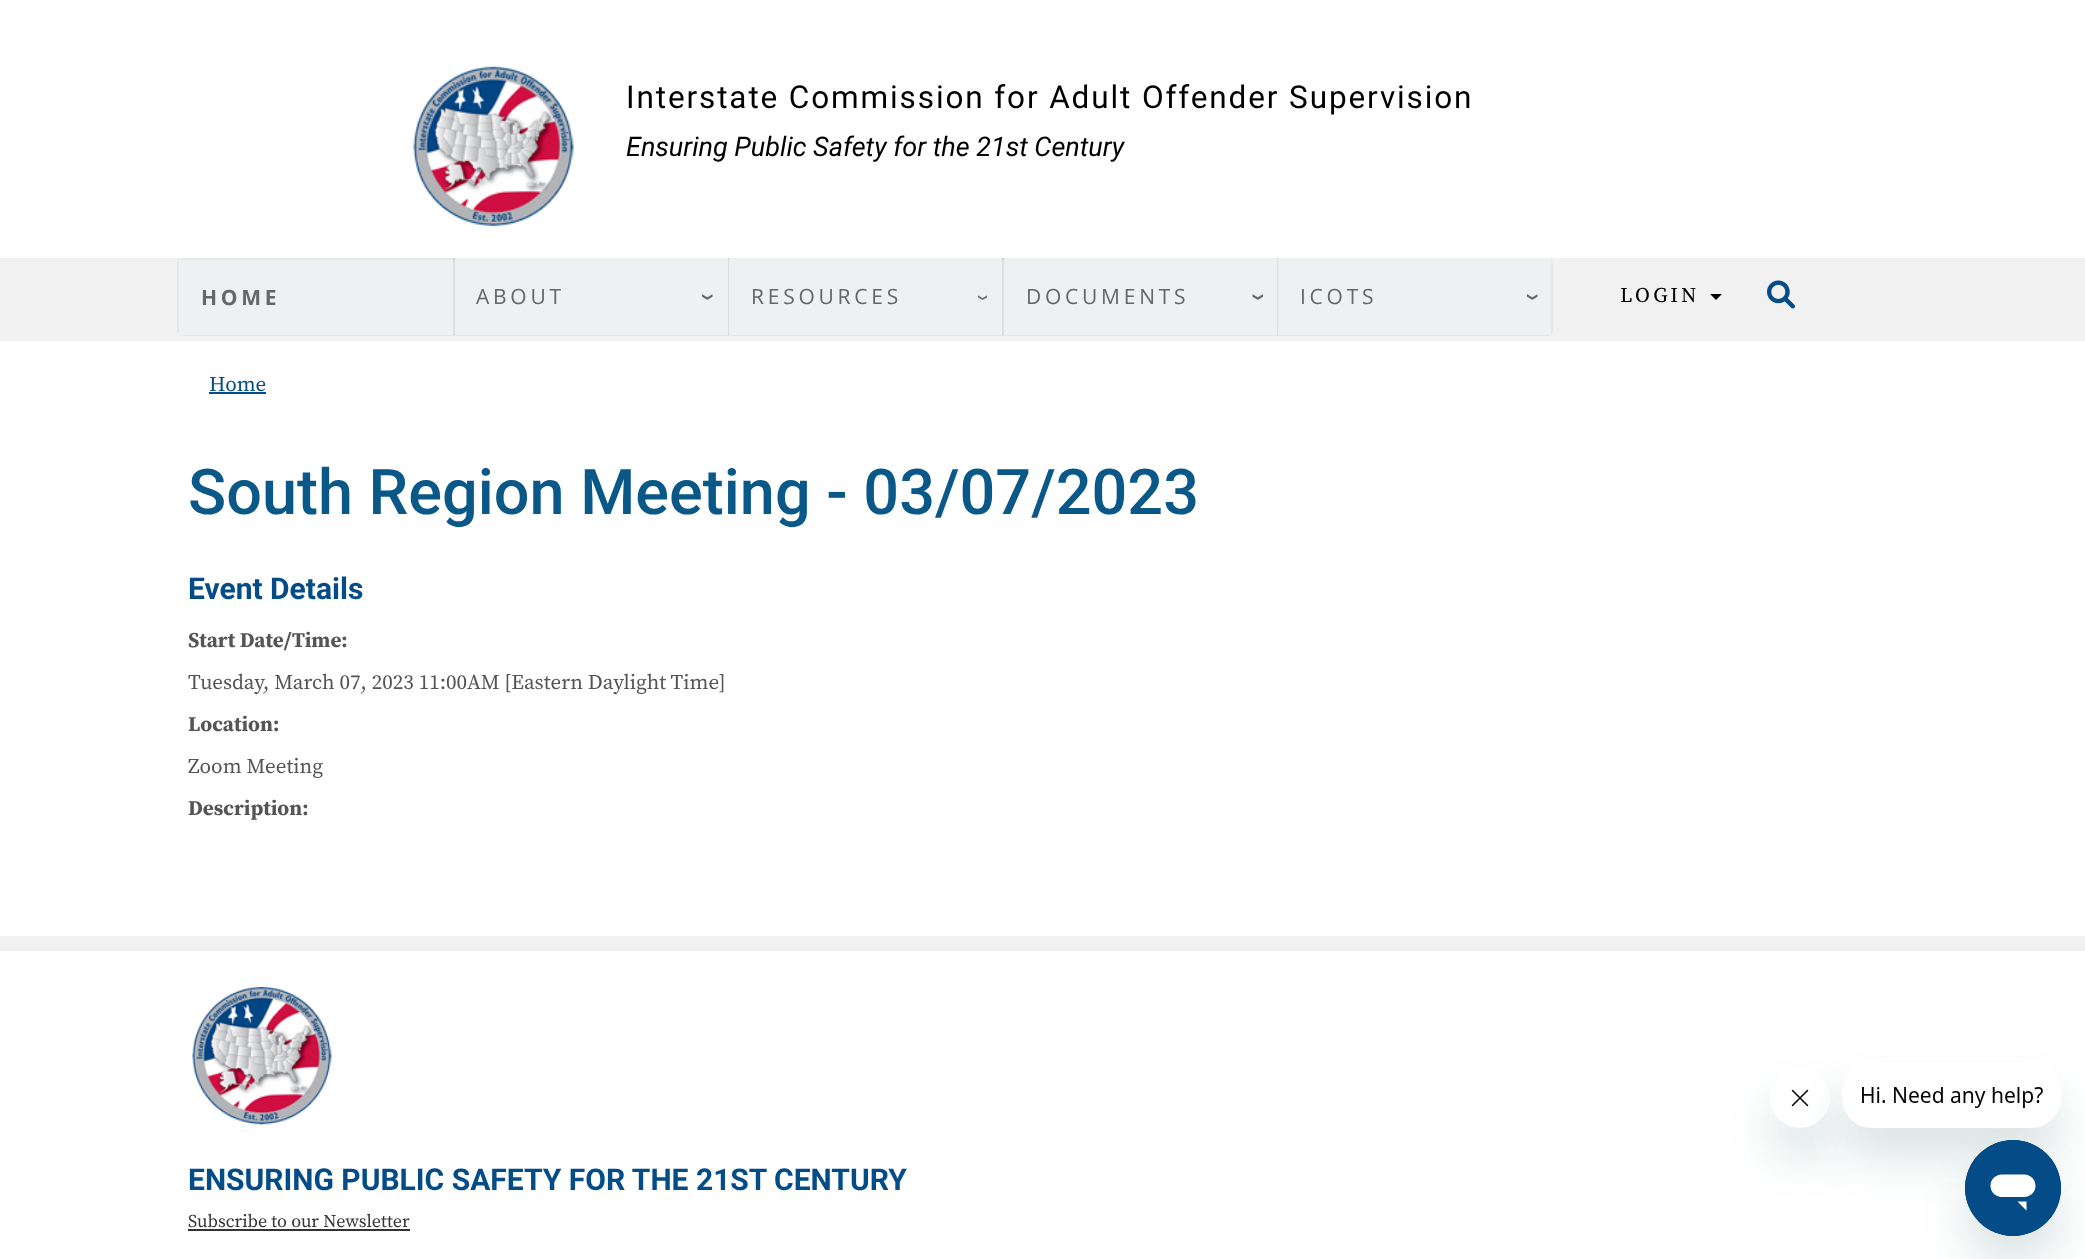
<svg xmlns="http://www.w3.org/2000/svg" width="2085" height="1259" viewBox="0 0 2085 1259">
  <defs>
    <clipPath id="clip1"><path d="M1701 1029H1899V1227H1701ZM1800 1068C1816.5 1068 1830 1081.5 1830 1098C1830 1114.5 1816.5 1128 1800 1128C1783.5 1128 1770 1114.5 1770 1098C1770 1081.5 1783.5 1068 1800 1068Z" clip-rule="evenodd"/></clipPath>
    <clipPath id="clip2"><path d="M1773 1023H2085V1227H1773ZM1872 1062H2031C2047.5 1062 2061 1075.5 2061 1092V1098C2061 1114.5 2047.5 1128 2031 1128H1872C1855.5 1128 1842 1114.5 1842 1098V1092C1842 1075.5 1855.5 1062 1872 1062Z" clip-rule="evenodd"/></clipPath>
  </defs>
  <rect width="100%" height="100%" fill="rgb(255,255,255)"/>
  <image x="413" y="66" width="161" height="161" href="pic1.png"/>
  <text x="626" y="108" font-family="Roboto" font-size="31.5" letter-spacing="1.88" fill="rgb(0,0,0)">Interstate Commission for Adult Offender Supervision</text>
  <text x="626" y="156" font-family="Roboto" font-size="27" font-style="italic" fill="rgb(0,0,0)">Ensuring Public Safety for the 21st Century</text>
  <rect x="0" y="258" width="2085" height="83" fill="rgb(241,241,241)"/>
  <rect x="178" y="259" width="1374" height="76" rx="5" fill="rgb(248,248,248)" stroke="rgb(231,231,231)" stroke-width="2"/>
  <rect x="179" y="260" width="274" height="75" fill="rgb(239,240,241)"/>
  <text x="201" y="305" font-family="Open Sans" font-size="21" font-weight="bold" letter-spacing="3.75" fill="rgb(102,102,102)">HOME</text>
  <rect x="453" y="258" width="2" height="77" fill="rgba(0,0,0,0.1)"/>
  <rect x="455" y="258" width="273" height="77" fill="rgb(239,240,241)"/>
  <text x="476" y="304" font-family="Open Sans" font-size="21" letter-spacing="3.75" fill="rgb(102,102,102)">ABOUT</text>
  <image x="702" y="294" width="11" height="6" href="pic2.png"/>
  <rect x="728" y="258" width="1" height="77" fill="rgba(0,0,0,0.1)"/>
  <rect x="729" y="258" width="273" height="77" fill="rgb(239,240,241)"/>
  <text x="751" y="304" font-family="Open Sans" font-size="21" letter-spacing="3.75" fill="rgb(102,102,102)">RESOURCES</text>
  <image x="978" y="295" width="9" height="5" href="pic3.png"/>
  <rect x="1002" y="258" width="2" height="77" fill="rgba(0,0,0,0.1)"/>
  <rect x="1004" y="258" width="273" height="77" fill="rgb(239,240,241)"/>
  <text x="1026" y="304" font-family="Open Sans" font-size="21" letter-spacing="3.75" fill="rgb(102,102,102)">DOCUMENTS</text>
  <image x="1252" y="294" width="11" height="6" href="pic4.png"/>
  <rect x="1277" y="258" width="1" height="77" fill="rgba(0,0,0,0.1)"/>
  <rect x="1278" y="258" width="273" height="77" fill="rgb(239,240,241)"/>
  <text x="1300" y="304" font-family="Open Sans" font-size="21" letter-spacing="3.75" fill="rgb(102,102,102)">ICOTS</text>
  <image x="1527" y="294" width="11" height="6" href="pic2.png"/>
  <text x="1620" y="302" font-family="Source Serif Pro" font-size="21" letter-spacing="3" fill="rgb(0,0,0)">LOGIN</text>
  <path d="M1710 294H1722L1716 300Z" fill="rgb(0,0,0)"/>
  <image x="1767" y="280" width="28" height="29" href="pic5.png"/>
  <text x="209" y="391" font-family="Source Serif Pro" font-size="21" fill="rgb(4,76,135)">Home</text>
  <rect x="209" y="392" width="57" height="2" fill="rgb(4,76,135)"/>
  <text x="188" y="514" font-family="Roboto" font-size="63" font-weight="500" fill="rgb(9,88,135)">South Region Meeting - 03/07/2023</text>
  <text x="188" y="599" font-family="Roboto" font-size="30" font-weight="bold" fill="rgb(4,76,135)">Event Details</text>
  <text x="188" y="647" font-family="Source Serif Pro" font-size="21" font-weight="bold" fill="rgb(85,85,85)">Start Date/Time:</text>
  <text x="188" y="689" font-family="Source Serif Pro" font-size="21" fill="rgb(85,85,85)">Tuesday, March 07, 2023 11:00AM [Eastern Daylight Time]</text>
  <text x="188" y="731" font-family="Source Serif Pro" font-size="21" font-weight="bold" fill="rgb(85,85,85)">Location:</text>
  <text x="188" y="773" font-family="Source Serif Pro" font-size="21" fill="rgb(85,85,85)">Zoom Meeting</text>
  <text x="188" y="815" font-family="Source Serif Pro" font-size="21" font-weight="bold" fill="rgb(85,85,85)">Description:</text>
  <rect x="0" y="936" width="2085" height="15" fill="rgb(241,241,241)"/>
  <image x="192" y="986" width="140" height="139" href="pic6.png"/>
  <text x="188" y="1190" font-family="Roboto" font-size="30" font-weight="bold" fill="rgb(4,76,135)">ENSURING PUBLIC SAFETY FOR THE 21ST CENTURY</text>
  <text x="188" y="1227" font-family="Source Serif Pro" font-size="18" fill="rgb(51,51,51)">Subscribe to our Newsletter</text>
  <rect x="188" y="1229" width="222" height="2" fill="rgb(51,51,51)"/>
  <g clip-path="url(#clip1)">
    <rect x="1770" y="1098" width="60" height="60" rx="30" fill="rgba(23,73,77,0.15)" filter="blur(22.5px)"/>
  </g>
  <image x="1791" y="1089" width="18" height="18" href="pic8.png"/>
  <g clip-path="url(#clip2)">
    <rect x="1842" y="1092" width="219" height="66" rx="30" fill="rgba(23,73,77,0.15)" filter="blur(22.5px)"/>
  </g>
  <image x="1843" y="1087" width="200" height="39" href="pic7.png"/>
  <rect x="1965" y="1170" width="96" height="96" rx="48" fill="rgba(23,73,77,0.15)" filter="blur(22.5px)"/>
  <image x="1965" y="1140" width="96" height="96" href="pic9.png"/>
</svg>
